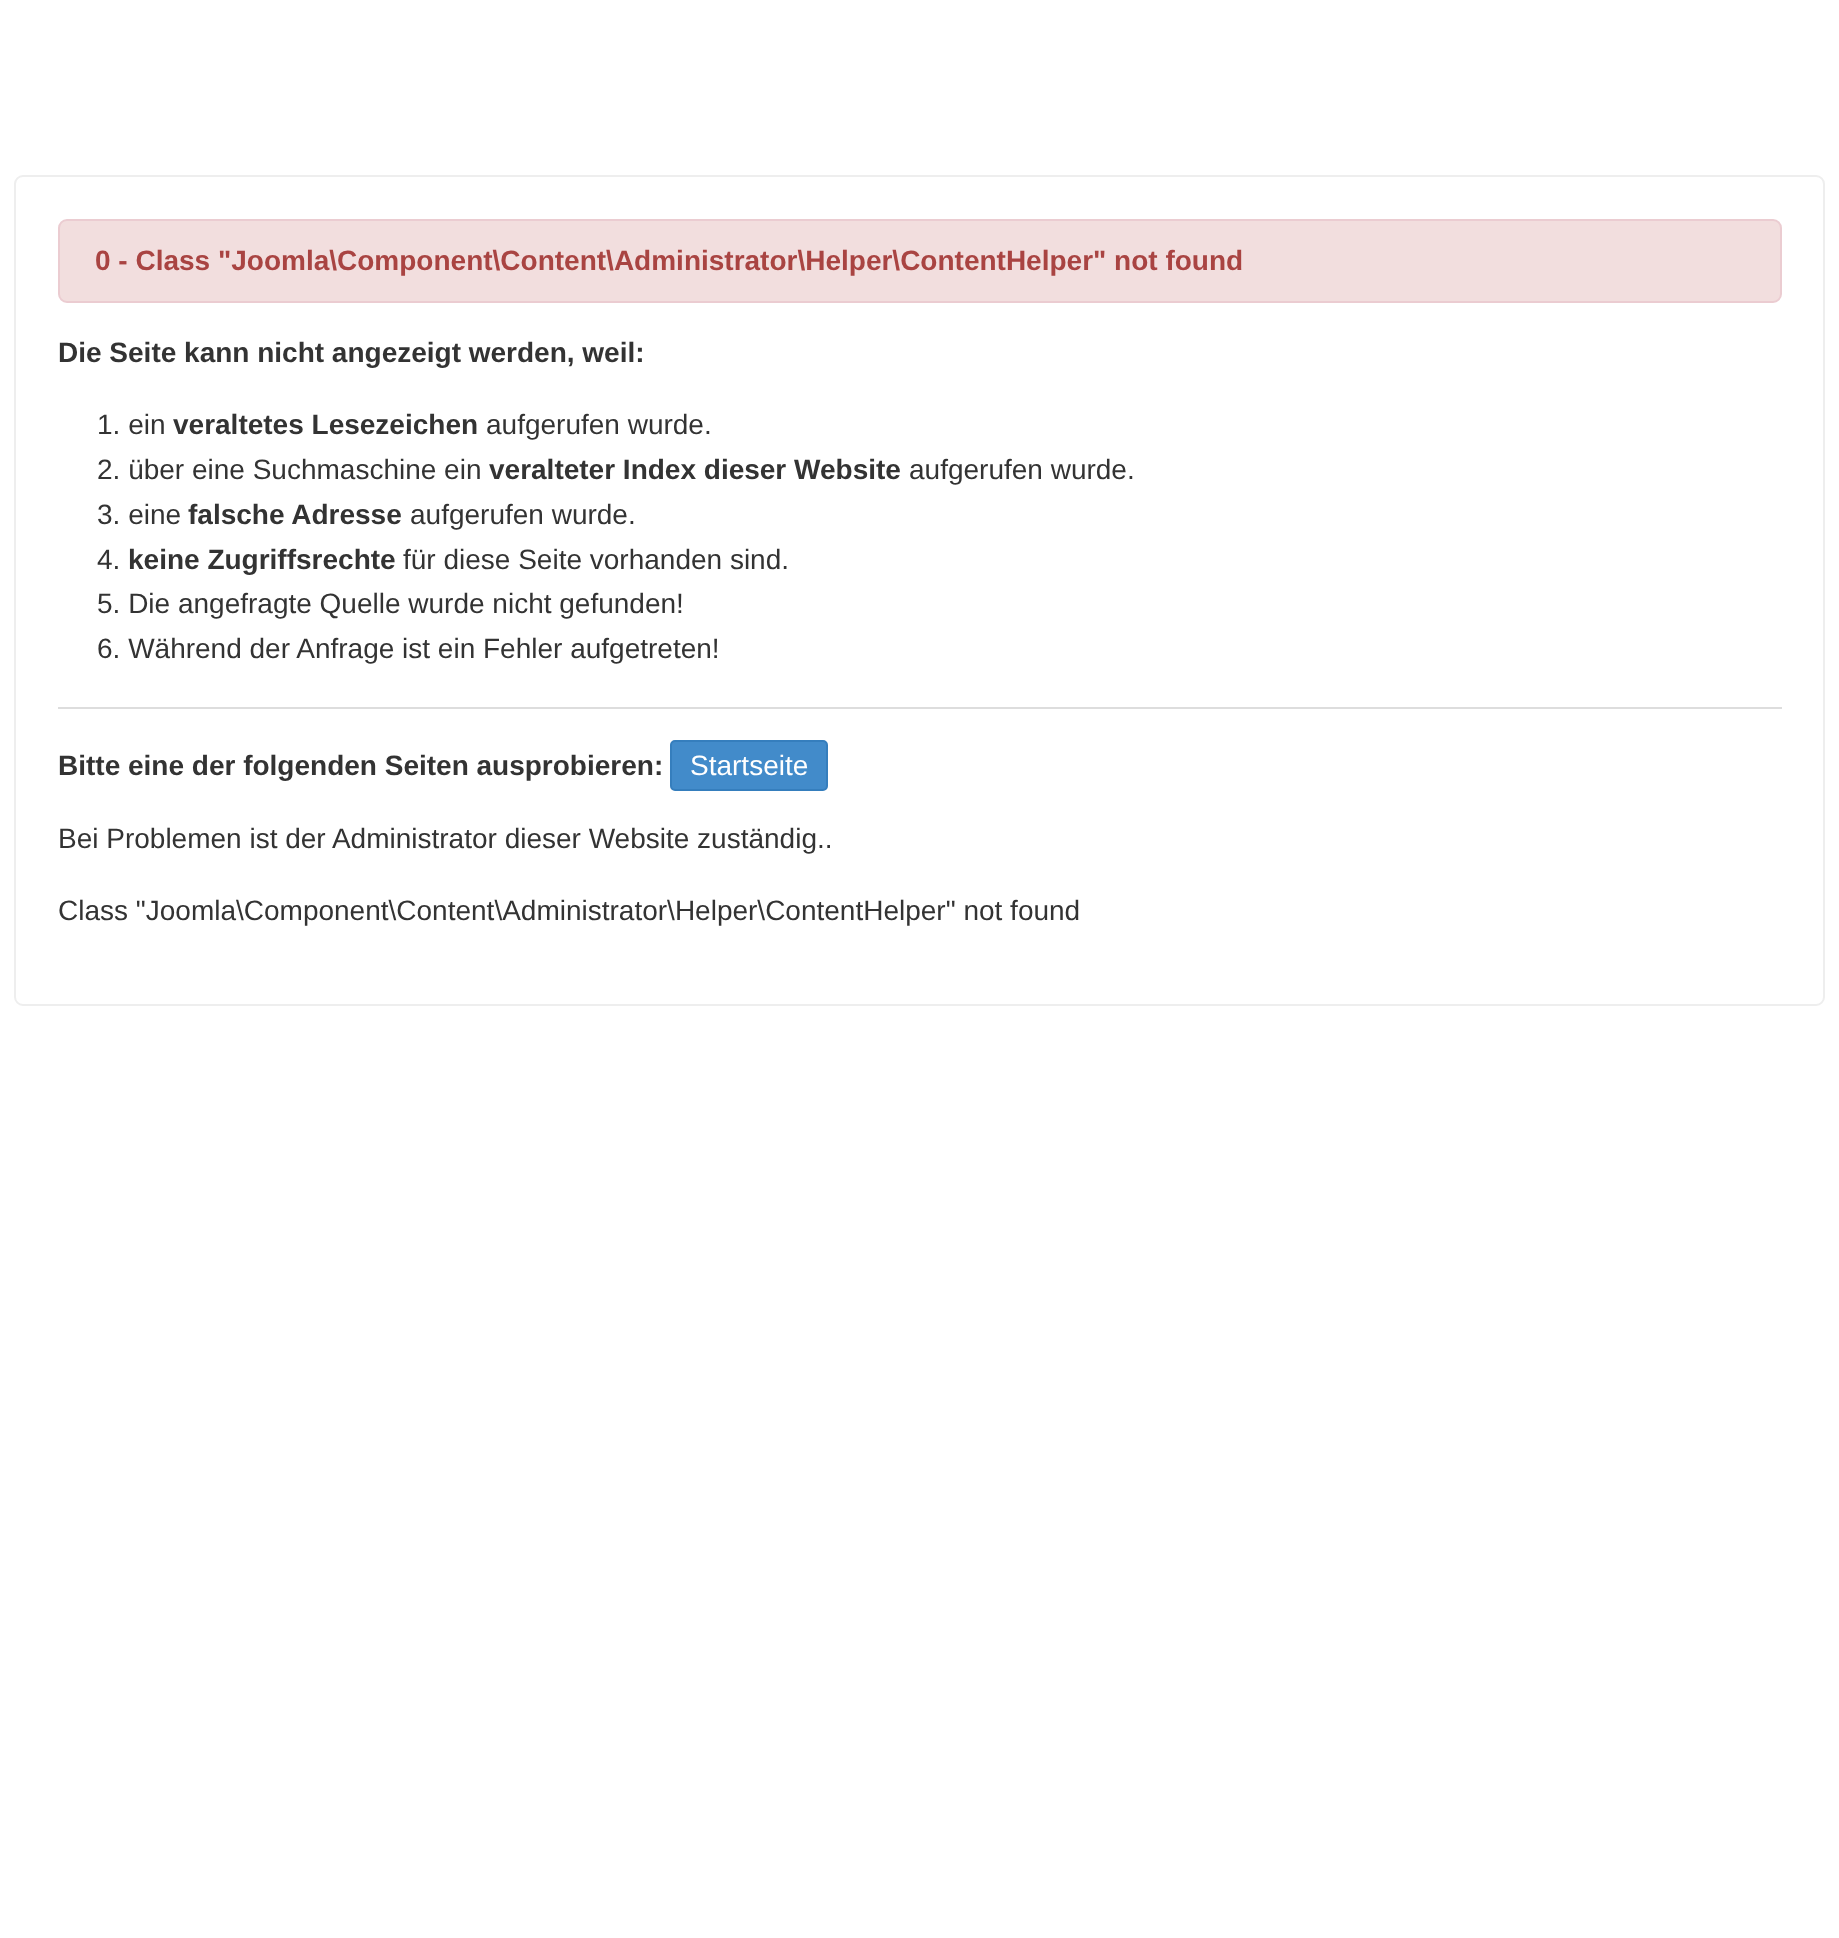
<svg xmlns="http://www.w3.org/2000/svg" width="1839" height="1938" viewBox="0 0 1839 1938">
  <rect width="100%" height="100%" fill="rgb(255,255,255)"/>
  <rect x="15" y="176" width="1809" height="829" rx="8" fill="none" stroke="rgb(238,238,238)" stroke-width="2"/>
  <rect x="59" y="220" width="1722" height="82" rx="8" fill="rgb(242,222,222)" stroke="rgb(235,204,209)" stroke-width="2"/>
  <text x="95" y="270" font-family="Liberation Sans" font-size="28" font-weight="bold" fill="rgb(169,68,66)">0 - Class "Joomla\Component\Content\Administrator\Helper\ContentHelper" not found</text>
  <text x="58" y="362" font-family="Liberation Sans" font-size="28" font-weight="bold" fill="rgb(51,51,51)">Die Seite kann nicht angezeigt werden, weil:</text>
  <rect x="58" y="707" width="1724" height="2" fill="rgb(221,221,221)"/>
  <text x="97" y="434" font-family="Liberation Sans" font-size="28" fill="rgb(51,51,51)">1. ein</text>
  <text x="173" y="434" font-family="Liberation Sans" font-size="28" font-weight="bold" fill="rgb(51,51,51)">veraltetes Lesezeichen</text>
  <g font-family="Liberation Sans" font-size="28" fill="rgb(51,51,51)">
    <text x="486" y="434">aufgerufen wurde.</text>
    <text x="97" y="479">2. über eine Suchmaschine ein</text>
  </g>
  <text x="489" y="479" font-family="Liberation Sans" font-size="28" font-weight="bold" fill="rgb(51,51,51)">veralteter Index dieser Website</text>
  <g font-family="Liberation Sans" font-size="28" fill="rgb(51,51,51)">
    <text x="909" y="479">aufgerufen wurde.</text>
    <text x="97" y="524">3. eine</text>
  </g>
  <text x="188" y="524" font-family="Liberation Sans" font-size="28" font-weight="bold" fill="rgb(51,51,51)">falsche Adresse</text>
  <g font-family="Liberation Sans" font-size="28" fill="rgb(51,51,51)">
    <text x="410" y="524">aufgerufen wurde.</text>
    <text x="97" y="569">4.</text>
  </g>
  <text x="128" y="569" font-family="Liberation Sans" font-size="28" font-weight="bold" fill="rgb(51,51,51)">keine Zugriffsrechte</text>
  <g font-family="Liberation Sans" font-size="28" fill="rgb(51,51,51)">
    <text x="403" y="569">für diese Seite vorhanden sind.</text>
    <text>
      <tspan x="97" y="613">5. Die angefragte Quelle wurde nicht gefunden!</tspan>
      <tspan x="97" y="658">6. Während der Anfrage ist ein Fehler aufgetreten!</tspan>
    </text>
  </g>
  <text x="58" y="775" font-family="Liberation Sans" font-size="28" font-weight="bold" fill="rgb(51,51,51)">Bitte eine der folgenden Seiten ausprobieren:</text>
  <rect x="671" y="741" width="156" height="49" rx="4" fill="rgb(66,139,202)" stroke="rgb(53,126,189)" stroke-width="2"/>
  <text x="690" y="775" font-family="Liberation Sans" font-size="28" fill="rgb(255,255,255)">Startseite</text>
  <g font-family="Liberation Sans" font-size="28" fill="rgb(51,51,51)">
    <text x="58" y="848">Bei Problemen ist der Administrator dieser Website zuständig..</text>
    <text x="58" y="920">Class "Joomla\Component\Content\Administrator\Helper\ContentHelper" not found</text>
  </g>
</svg>
